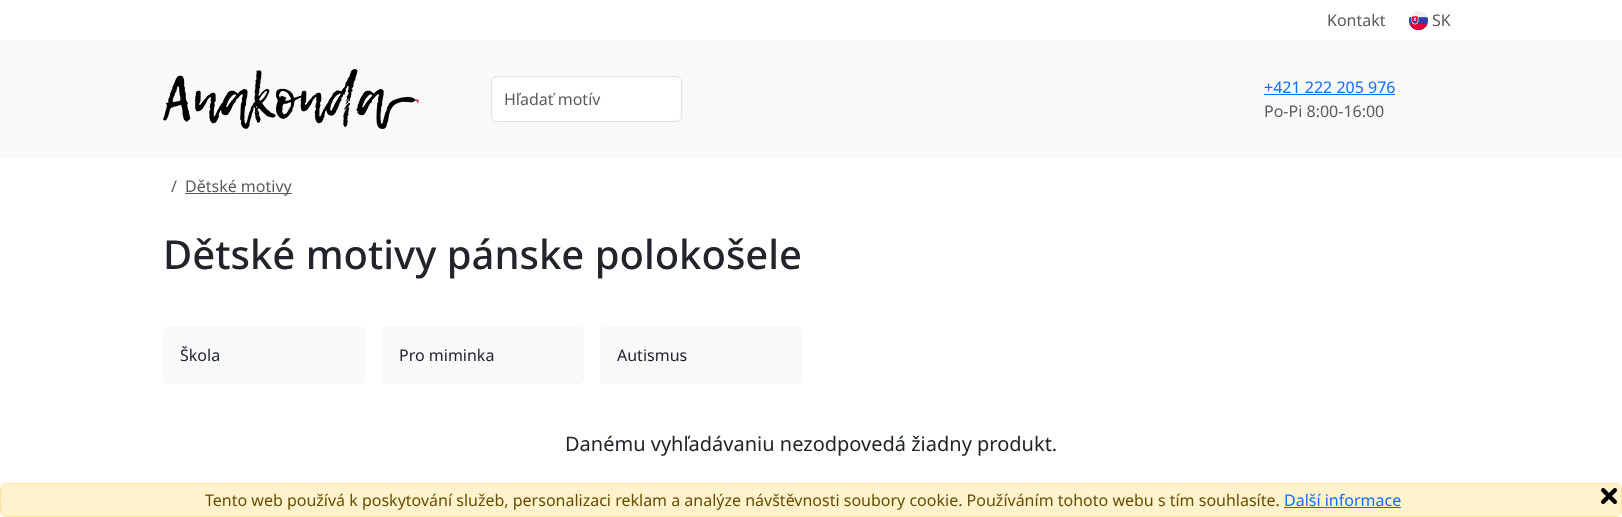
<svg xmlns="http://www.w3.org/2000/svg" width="1622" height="517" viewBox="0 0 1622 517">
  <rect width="100%" height="100%" fill="rgb(255,255,255)"/>
  <text x="1327" y="26" font-family="Noto Sans" font-size="16" fill="rgb(89,89,89)">Kontakt</text>
  <image x="1409" y="11" width="19" height="19" href="pic1.png"/>
  <text x="1432" y="26" font-family="Noto Sans" font-size="16" fill="rgb(89,89,89)">SK</text>
  <rect x="0" y="40" width="1622" height="118" fill="rgb(248,249,250)"/>
  <image x="163" y="69" width="256" height="60" href="pic2.png"/>
  <rect x="491.5" y="76.5" width="190" height="45" rx="5.5" fill="rgb(255,255,255)" stroke="rgb(222,226,230)"/>
  <text x="504" y="105" font-family="Noto Sans" font-size="16" fill="rgb(89,92,95)">Hľadať motív</text>
  <text x="1264" y="93" font-family="Noto Sans" font-size="16" fill="rgb(13,110,253)">+421 222 205 976</text>
  <rect x="1264" y="94" width="131" height="1" fill="rgb(13,110,253)"/>
  <text x="1264" y="117" font-family="Noto Sans" font-size="16" fill="rgb(89,92,95)">Po-Pi 8:00-16:00</text>
  <rect x="0.5" y="483.5" width="1621" height="33" rx="5.5" fill="rgb(255,243,205)" stroke="rgb(255,230,156)"/>
  <text x="205" y="506" font-family="Noto Sans" font-size="16" fill="rgb(102,77,3)">Tento web používá k poskytování služeb, personalizaci reklam a analýze návštěvnosti soubory cookie. Používáním tohoto webu s tím souhlasíte.</text>
  <text x="1284" y="506" font-family="Noto Sans" font-size="16" fill="rgb(13,110,253)">Další informace</text>
  <rect x="1284" y="507" width="117" height="1" fill="rgb(13,110,253)"/>
  <image x="1601" y="488" width="16" height="16" href="pic3.png"/>
  <text x="171" y="192" font-family="Noto Sans" font-size="16" fill="rgb(89,92,95)">/</text>
  <rect x="185" y="193" width="107" height="1" fill="rgb(89,92,95)"/>
  <text x="185" y="192" font-family="Noto Sans" font-size="16" fill="rgb(89,92,95)">Dětské motivy</text>
  <text x="163" y="269" font-family="Noto Sans" font-size="40" font-weight="500" fill="rgb(33,37,41)">Dětské motivy pánske polokošele</text>
  <rect x="163" y="326" width="203" height="58" rx="6" fill="rgb(248,249,250)"/>
  <text x="180" y="361" font-family="Noto Sans" font-size="16" fill="rgb(33,37,41)">Škola</text>
  <rect x="382" y="326" width="202" height="58" rx="6" fill="rgb(248,249,250)"/>
  <text x="399" y="361" font-family="Noto Sans" font-size="16" fill="rgb(33,37,41)">Pro miminka</text>
  <rect x="600" y="326" width="203" height="58" rx="6" fill="rgb(248,249,250)"/>
  <text x="617" y="361" font-family="Noto Sans" font-size="16" fill="rgb(33,37,41)">Autismus</text>
  <text x="565" y="451" font-family="Noto Sans" font-size="20" fill="rgb(33,37,41)">Danému vyhľadávaniu nezodpovedá žiadny produkt.</text>
</svg>
